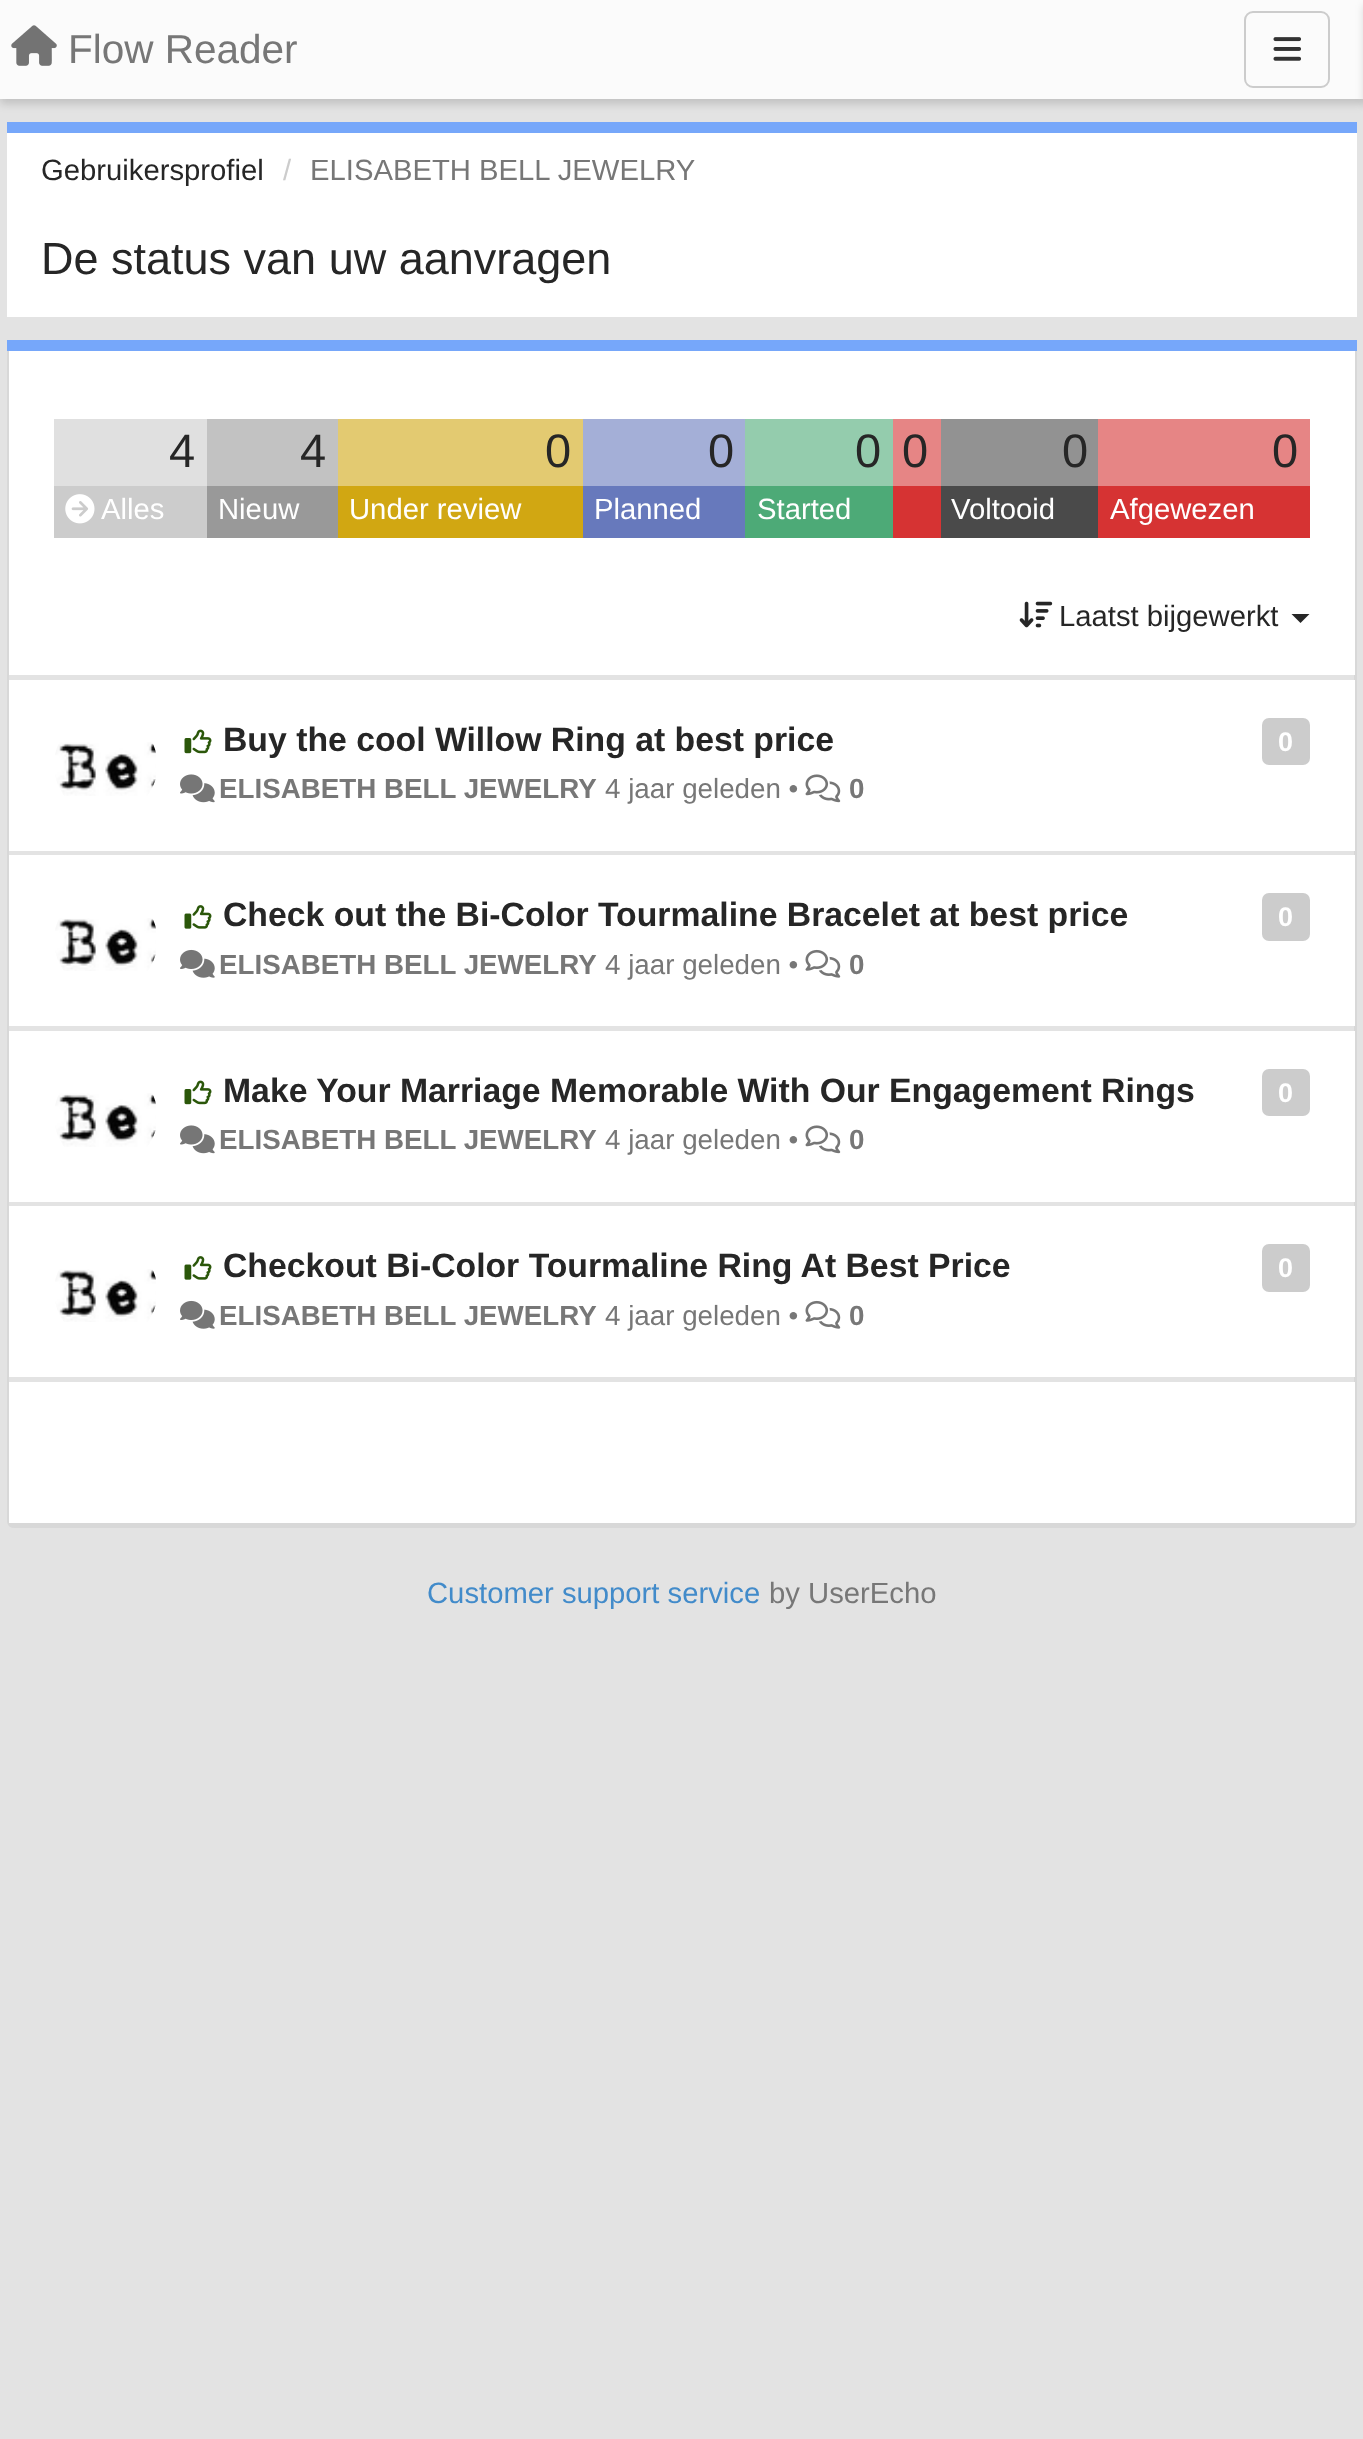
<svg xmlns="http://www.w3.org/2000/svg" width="1363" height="2439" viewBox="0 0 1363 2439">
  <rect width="100%" height="100%" fill="rgb(227,227,227)"/>
  <rect x="0" y="5" width="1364" height="99" fill="rgba(0,0,0,0.15)" filter="blur(4.5px)"/>
  <rect x="0" y="0" width="1363" height="99" fill="rgb(251,251,251)"/>
  <image x="11" y="25" width="46" height="41" href="pic1.png"/>
  <text x="68" y="63" font-family="Liberation Sans" font-size="40.5" fill="rgb(119,119,119)">Flow Reader</text>
  <rect x="1245" y="12" width="84" height="75" rx="8" fill="none" stroke="rgb(204,204,204)" stroke-width="2"/>
  <image x="1273" y="37" width="28" height="24" href="pic2.png"/>
  <rect x="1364" y="5" width="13" height="99" fill="rgba(0,0,0,0.15)" filter="blur(4.5px)"/>
  <rect x="7" y="133" width="1350" height="184" fill="rgb(255,255,255)"/>
  <rect x="7" y="122" width="1350" height="11" fill="rgb(118,167,250)"/>
  <text x="41" y="180" font-family="Liberation Sans" font-size="29.25" fill="rgb(38,38,38)">Gebruikersprofiel</text>
  <text x="283" y="180" font-family="Liberation Sans" font-size="29.25" fill="rgb(204,204,204)">/</text>
  <text x="310" y="180" font-family="Liberation Sans" font-size="29.25" fill="rgb(119,119,119)">ELISABETH BELL JEWELRY</text>
  <text x="41" y="274" font-family="Liberation Sans" font-size="45" fill="rgb(38,38,38)">De status van uw aanvragen</text>
  <rect x="7" y="340" width="1350" height="11" fill="rgb(118,167,250)"/>
  <path d="M7 351H1357V1521C1357 1525 1354 1528 1350 1528H14C10 1528 7 1525 7 1521ZM9 351H1354V1521C1354 1522 1352 1523 1350 1523H14C11 1523 9 1522 9 1521Z" fill="rgb(216,216,216)" fill-rule="evenodd"/>
  <rect x="9" y="351" width="1346" height="324" fill="rgb(255,255,255)"/>
  <rect x="54" y="419" width="153" height="67" fill="rgb(224,224,224)"/>
  <text x="169" y="467" font-family="Liberation Sans" font-size="47" fill="rgb(38,38,38)">4</text>
  <rect x="207" y="419" width="131" height="67" fill="rgb(194,194,194)"/>
  <text x="300" y="467" font-family="Liberation Sans" font-size="47" fill="rgb(38,38,38)">4</text>
  <rect x="338" y="419" width="245" height="67" fill="rgb(227,202,113)"/>
  <text x="545" y="467" font-family="Liberation Sans" font-size="47" fill="rgb(38,38,38)">0</text>
  <rect x="583" y="419" width="162" height="67" fill="rgb(164,175,215)"/>
  <text x="708" y="467" font-family="Liberation Sans" font-size="47" fill="rgb(38,38,38)">0</text>
  <rect x="745" y="419" width="148" height="67" fill="rgb(148,204,173)"/>
  <text x="855" y="467" font-family="Liberation Sans" font-size="47" fill="rgb(38,38,38)">0</text>
  <rect x="893" y="419" width="48" height="67" fill="rgb(230,133,133)"/>
  <text x="902" y="467" font-family="Liberation Sans" font-size="47" fill="rgb(38,38,38)">0</text>
  <rect x="941" y="419" width="157" height="67" fill="rgb(146,146,146)"/>
  <text x="1062" y="467" font-family="Liberation Sans" font-size="47" fill="rgb(38,38,38)">0</text>
  <rect x="1098" y="419" width="212" height="67" fill="rgb(230,133,133)"/>
  <text x="1272" y="467" font-family="Liberation Sans" font-size="47" fill="rgb(38,38,38)">0</text>
  <rect x="54" y="486" width="153" height="52" fill="rgb(204,204,204)"/>
  <image x="65" y="494" width="30" height="30" href="pic3.png"/>
  <text x="101" y="519" font-family="Liberation Sans" font-size="29.25" fill="rgb(255,255,255)">Alles</text>
  <rect x="207" y="486" width="131" height="52" fill="rgb(153,153,153)"/>
  <text x="218" y="519" font-family="Liberation Sans" font-size="29.25" fill="rgb(255,255,255)">Nieuw</text>
  <rect x="338" y="486" width="245" height="52" fill="rgb(209,167,18)"/>
  <text x="349" y="519" font-family="Liberation Sans" font-size="29.25" fill="rgb(255,255,255)">Under review</text>
  <rect x="583" y="486" width="162" height="52" fill="rgb(103,121,188)"/>
  <text x="594" y="519" font-family="Liberation Sans" font-size="29.25" fill="rgb(255,255,255)">Planned</text>
  <rect x="745" y="486" width="148" height="52" fill="rgb(77,170,119)"/>
  <text x="757" y="519" font-family="Liberation Sans" font-size="29.25" fill="rgb(255,255,255)">Started</text>
  <rect x="893" y="486" width="48" height="52" fill="rgb(214,51,51)"/>
  <rect x="941" y="486" width="157" height="52" fill="rgb(74,74,74)"/>
  <text x="951" y="519" font-family="Liberation Sans" font-size="29.25" fill="rgb(255,255,255)">Voltooid</text>
  <rect x="1098" y="486" width="212" height="52" fill="rgb(214,51,51)"/>
  <text x="1110" y="519" font-family="Liberation Sans" font-size="29.25" fill="rgb(255,255,255)">Afgewezen</text>
  <image x="1019" y="601" width="34" height="27" href="pic4.png"/>
  <text x="1059" y="626" font-family="Liberation Sans" font-size="29.25" fill="rgb(38,38,38)">Laatst bijgewerkt</text>
  <path d="M1291.5 614H1309.5L1300.5 623Z" fill="rgb(38,38,38)"/>
  <rect x="9" y="680" width="1346" height="171" fill="rgb(255,255,255)"/>
  <image x="55" y="742" width="101" height="54" href="pic5.png"/>
  <image x="184" y="729" width="28" height="25" href="pic6.png"/>
  <text x="223" y="751" font-family="Liberation Sans" font-size="33.75" font-weight="bold" fill="rgb(38,38,38)">Buy the cool Willow Ring at best price</text>
  <rect x="1262" y="718" width="48" height="47" rx="7" fill="rgb(204,204,204)"/>
  <text x="1278" y="751" font-family="Liberation Sans" font-size="27" font-weight="bold" fill="rgb(255,255,255)">0</text>
  <image x="180" y="774" width="35" height="29" href="pic7.png"/>
  <text x="219" y="798" font-family="Liberation Sans" font-size="27.75" font-weight="bold" fill="rgb(119,119,119)">ELISABETH BELL JEWELRY</text>
  <text x="605" y="798" font-family="Liberation Sans" font-size="27.75" fill="rgb(119,119,119)">4 jaar geleden •</text>
  <image x="805" y="774" width="36" height="29" href="pic8.png"/>
  <text x="849" y="798" font-family="Liberation Sans" font-size="27.75" font-weight="bold" fill="rgb(119,119,119)">0</text>
  <rect x="9" y="855" width="1346" height="171" fill="rgb(255,255,255)"/>
  <image x="55" y="918" width="101" height="53" href="pic9.png"/>
  <image x="184" y="905" width="28" height="24" href="pic10.png"/>
  <text x="223" y="926" font-family="Liberation Sans" font-size="33.75" font-weight="bold" fill="rgb(38,38,38)">Check out the Bi-Color Tourmaline Bracelet at best price</text>
  <rect x="1262" y="893" width="48" height="48" rx="7" fill="rgb(204,204,204)"/>
  <text x="1278" y="926" font-family="Liberation Sans" font-size="27" font-weight="bold" fill="rgb(255,255,255)">0</text>
  <image x="180" y="949" width="35" height="29" href="pic11.png"/>
  <text x="219" y="974" font-family="Liberation Sans" font-size="27.75" font-weight="bold" fill="rgb(119,119,119)">ELISABETH BELL JEWELRY</text>
  <text x="605" y="974" font-family="Liberation Sans" font-size="27.75" fill="rgb(119,119,119)">4 jaar geleden •</text>
  <image x="805" y="949" width="36" height="29" href="pic12.png"/>
  <text x="849" y="974" font-family="Liberation Sans" font-size="27.75" font-weight="bold" fill="rgb(119,119,119)">0</text>
  <rect x="9" y="1031" width="1346" height="171" fill="rgb(255,255,255)"/>
  <image x="55" y="1093" width="101" height="54" href="pic13.png"/>
  <image x="184" y="1080" width="28" height="25" href="pic6.png"/>
  <text x="223" y="1102" font-family="Liberation Sans" font-size="33.75" font-weight="bold" fill="rgb(38,38,38)">Make Your Marriage Memorable With Our Engagement Rings</text>
  <rect x="1262" y="1069" width="48" height="47" rx="7" fill="rgb(204,204,204)"/>
  <text x="1278" y="1102" font-family="Liberation Sans" font-size="27" font-weight="bold" fill="rgb(255,255,255)">0</text>
  <image x="180" y="1125" width="35" height="29" href="pic7.png"/>
  <text x="219" y="1149" font-family="Liberation Sans" font-size="27.75" font-weight="bold" fill="rgb(119,119,119)">ELISABETH BELL JEWELRY</text>
  <text x="605" y="1149" font-family="Liberation Sans" font-size="27.75" fill="rgb(119,119,119)">4 jaar geleden •</text>
  <image x="805" y="1125" width="36" height="29" href="pic8.png"/>
  <text x="849" y="1149" font-family="Liberation Sans" font-size="27.75" font-weight="bold" fill="rgb(119,119,119)">0</text>
  <rect x="9" y="1206" width="1346" height="171" fill="rgb(255,255,255)"/>
  <image x="55" y="1269" width="101" height="53" href="pic14.png"/>
  <image x="184" y="1256" width="28" height="24" href="pic10.png"/>
  <text x="223" y="1277" font-family="Liberation Sans" font-size="33.75" font-weight="bold" fill="rgb(38,38,38)">Checkout Bi-Color Tourmaline Ring At Best Price</text>
  <rect x="1262" y="1244" width="48" height="48" rx="7" fill="rgb(204,204,204)"/>
  <text x="1278" y="1277" font-family="Liberation Sans" font-size="27" font-weight="bold" fill="rgb(255,255,255)">0</text>
  <image x="180" y="1300" width="35" height="29" href="pic11.png"/>
  <text x="219" y="1325" font-family="Liberation Sans" font-size="27.75" font-weight="bold" fill="rgb(119,119,119)">ELISABETH BELL JEWELRY</text>
  <text x="605" y="1325" font-family="Liberation Sans" font-size="27.75" fill="rgb(119,119,119)">4 jaar geleden •</text>
  <image x="805" y="1300" width="36" height="29" href="pic12.png"/>
  <text x="849" y="1325" font-family="Liberation Sans" font-size="27.75" font-weight="bold" fill="rgb(119,119,119)">0</text>
  <rect x="9" y="1382" width="1346" height="141" fill="rgb(255,255,255)"/>
  <text x="427" y="1603" font-family="Liberation Sans" font-size="29.25" fill="rgb(66,139,202)">Customer support service</text>
  <text x="769" y="1603" font-family="Liberation Sans" font-size="29.25" fill="rgb(119,119,119)">by UserEcho</text>
</svg>
